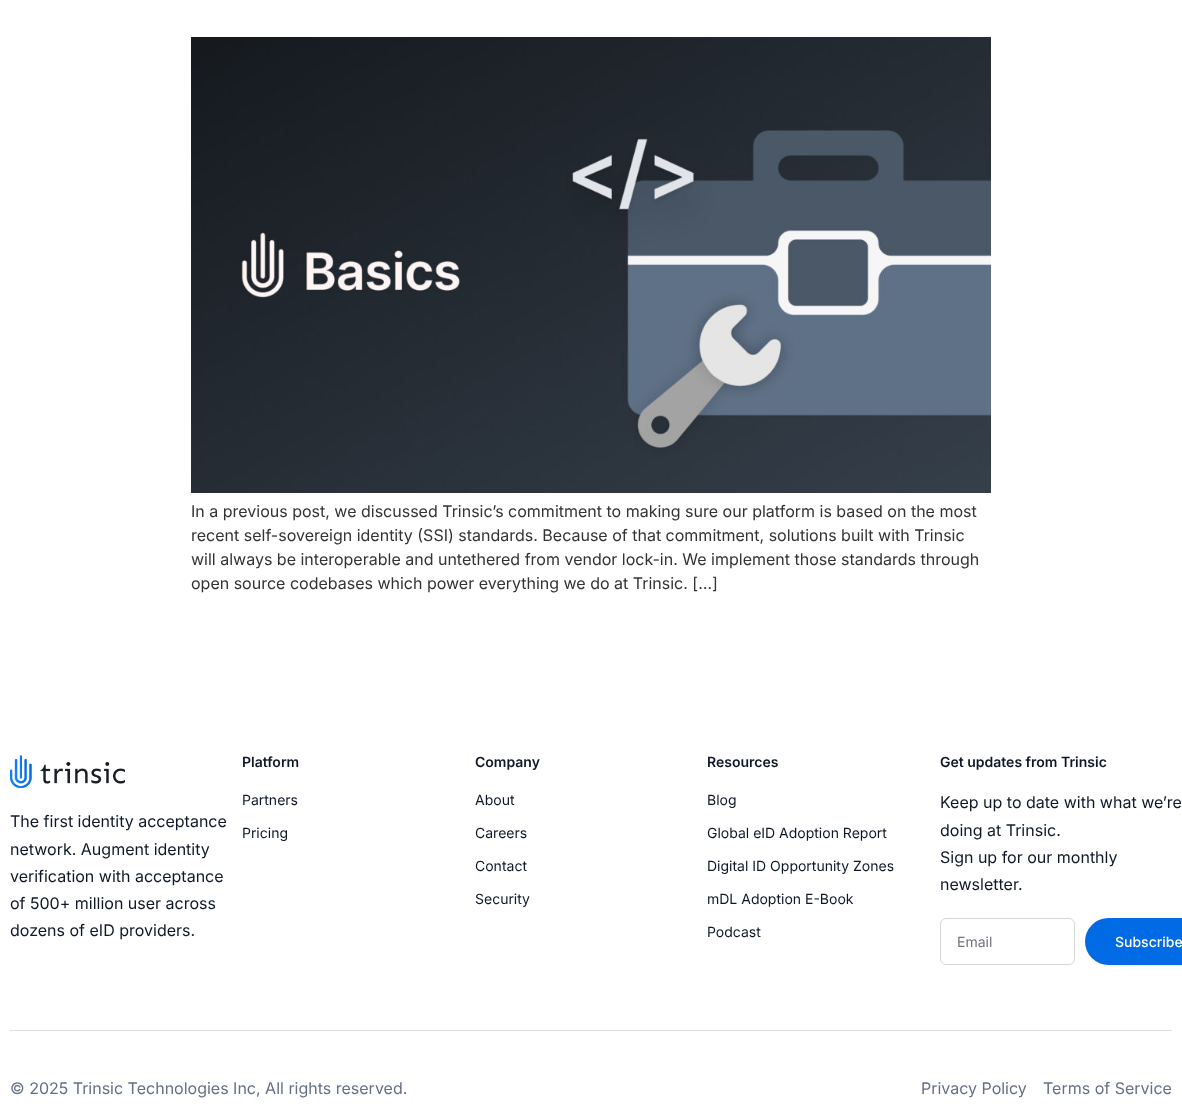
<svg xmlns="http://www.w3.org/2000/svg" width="1182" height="1120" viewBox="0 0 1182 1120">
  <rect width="100%" height="100%" fill="rgb(255,255,255)"/>
  <image x="191" y="37" width="800" height="456" href="pic1.png"/>
  <g font-family="Inter" font-size="16" fill="rgb(51,51,51)">
    <text>
      <tspan x="191" y="517">In a previous post, we discussed Trinsic’s commitment to making sure our platform is based on the most</tspan>
      <tspan x="191" y="541">recent self-sovereign identity (SSI) standards. Because of that commitment, solutions built with Trinsic</tspan>
      <tspan x="191" y="565">will always be interoperable and untethered from vendor lock-in. We implement those standards through</tspan>
      <tspan x="191" y="589">open source codebases which power everything we do at Trinsic. […]</tspan>
    </text>
  </g>
  <image x="10" y="755" width="115" height="33" href="pic2.png"/>
  <g font-family="Inter" font-size="16" fill="rgb(16,24,40)">
    <text>
      <tspan x="10" y="827">The first identity acceptance</tspan>
      <tspan x="10" y="855">network. Augment identity</tspan>
      <tspan x="10" y="882">verification with acceptance</tspan>
      <tspan x="10" y="909">of 500+ million user across</tspan>
      <tspan x="10" y="936">dozens of eID providers.</tspan>
    </text>
  </g>
  <text x="242" y="767" font-family="Inter" font-size="14" font-weight="600" fill="rgb(16,24,40)">Platform</text>
  <g font-family="Inter" font-size="14" fill="rgb(16,24,40)">
    <text x="242" y="805">Partners</text>
    <text x="242" y="838">Pricing</text>
  </g>
  <text x="475" y="767" font-family="Inter" font-size="14" font-weight="600" fill="rgb(16,24,40)">Company</text>
  <g font-family="Inter" font-size="14" fill="rgb(16,24,40)">
    <text x="475" y="805">About</text>
    <text x="475" y="838">Careers</text>
    <text x="475" y="871">Contact</text>
    <text x="475" y="904">Security</text>
  </g>
  <text x="707" y="767" font-family="Inter" font-size="14" font-weight="600" fill="rgb(16,24,40)">Resources</text>
  <g font-family="Inter" font-size="14" fill="rgb(16,24,40)">
    <text x="707" y="805">Blog</text>
    <text x="707" y="838">Global eID Adoption Report</text>
    <text x="707" y="871">Digital ID Opportunity Zones</text>
    <text x="707" y="904">mDL Adoption E-Book</text>
    <text x="707" y="937">Podcast</text>
  </g>
  <text x="940" y="767" font-family="Inter" font-size="14" font-weight="600" fill="rgb(16,24,40)">Get updates from Trinsic</text>
  <g font-family="Inter" font-size="16" fill="rgb(16,24,40)">
    <text>
      <tspan x="940" y="808">Keep up to date with what we’re</tspan>
      <tspan x="940" y="836">doing at Trinsic.</tspan>
      <tspan x="940" y="863">Sign up for our monthly</tspan>
      <tspan x="940" y="890">newsletter.</tspan>
    </text>
  </g>
  <rect x="940.5" y="918.5" width="134" height="46" rx="5.5" fill="none" stroke="rgb(215,215,215)"/>
  <text x="957" y="947" font-family="Inter" font-size="14" fill="rgb(112,116,126)">Email</text>
  <rect x="1085" y="918" width="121" height="47" rx="23.5" fill="rgb(0,107,229)"/>
  <text x="1115" y="947" font-family="Inter" font-size="14" font-weight="500" fill="rgb(255,255,255)">Subscribe</text>
  <rect x="10" y="1030" width="1162" height="1" fill="rgb(222,222,222)"/>
  <g font-family="Inter" font-size="16" fill="rgb(102,112,133)">
    <text x="10" y="1094">© 2025 Trinsic Technologies Inc, All rights reserved.</text>
    <text x="921" y="1094">Privacy Policy</text>
    <text x="1043" y="1094">Terms of Service</text>
  </g>
</svg>
